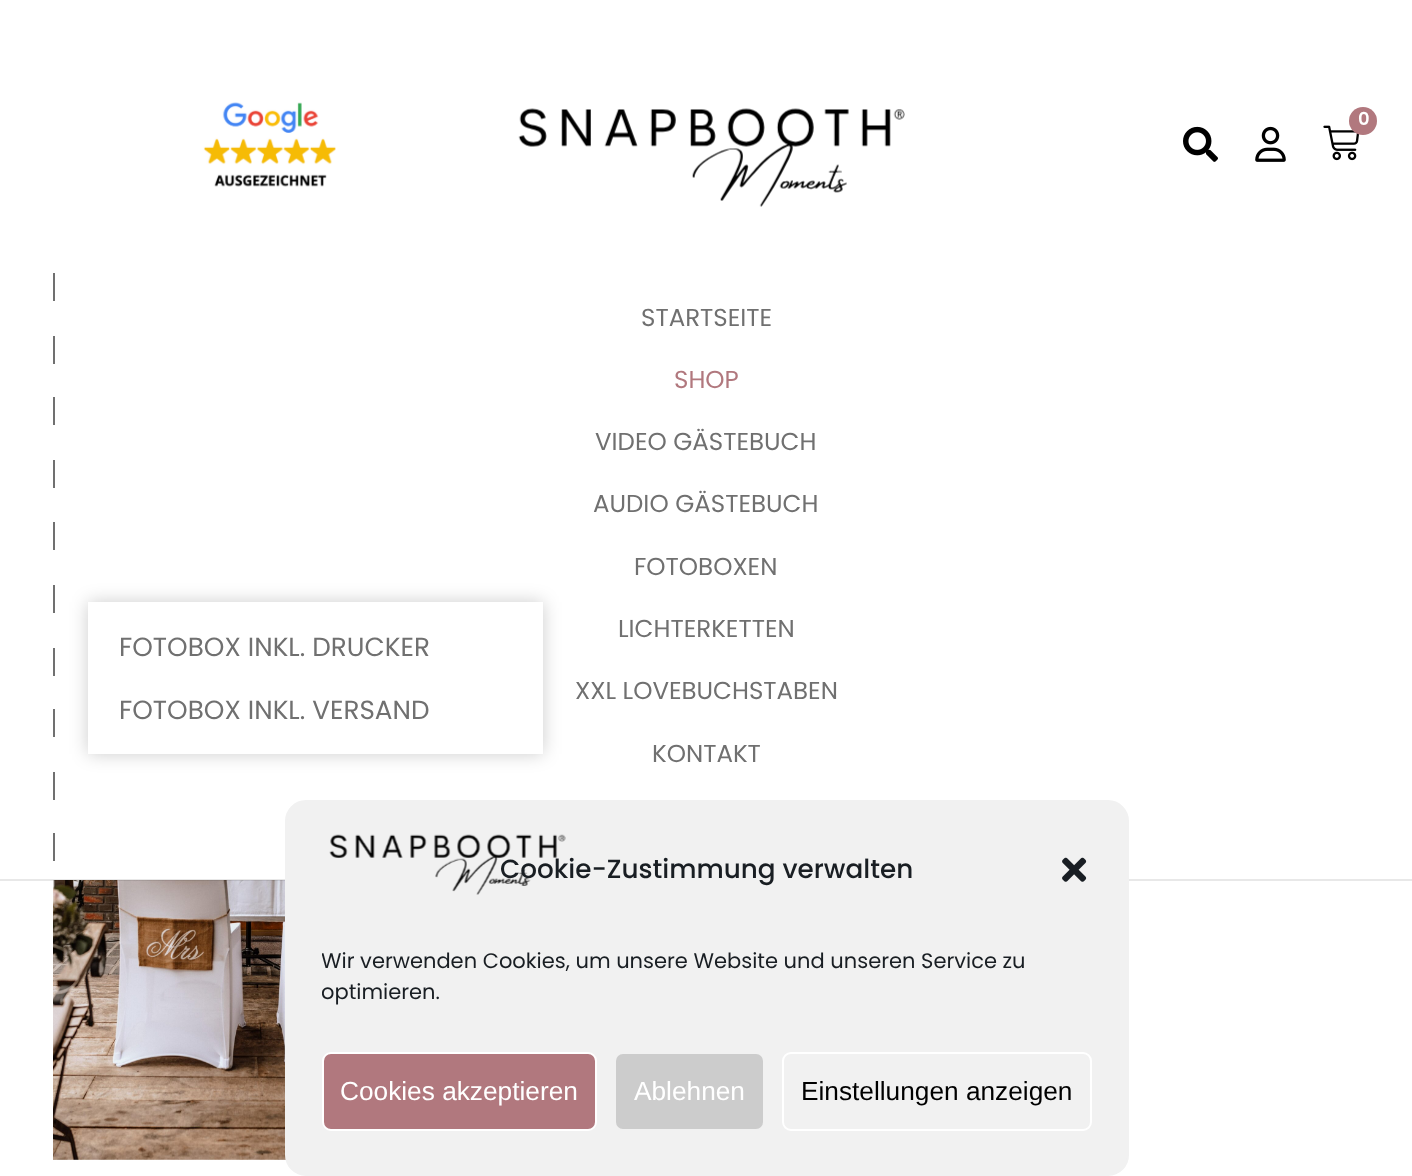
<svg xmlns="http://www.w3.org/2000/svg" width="1412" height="1176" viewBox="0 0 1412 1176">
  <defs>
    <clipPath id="clip1"><rect x="322" y="945" width="770" height="72"/></clipPath>
  </defs>
  <rect width="100%" height="100%" fill="rgb(255,255,255)"/>
  <image x="53" y="880" width="233" height="280" href="pic6.png"/>
  <rect x="0" y="879" width="1412" height="2" fill="rgba(0,0,0,0.09)"/>
  <image x="203" y="102" width="133" height="85" href="pic1.png"/>
  <image x="518" y="108" width="387" height="99" href="pic2.png"/>
  <image x="1323" y="125" width="36" height="36" href="pic3.png"/>
  <circle cx="1363" cy="121" r="14" fill="rgb(177,120,126)"/>
  <text x="1358" y="125" font-family="Poppins" font-size="18" font-weight="600" fill="rgb(255,255,255)">0</text>
  <image x="1183" y="126" width="35" height="36" href="pic4.png"/>
  <image x="1255" y="126" width="31" height="36" href="pic5.png"/>
  <rect x="53" y="273" width="2" height="28" fill="rgb(112,112,112)"/>
  <text x="641" y="326" font-family="Poppins" font-size="24.5" fill="rgb(112,112,112)">STARTSEITE</text>
  <rect x="53" y="336" width="2" height="28" fill="rgb(112,112,112)"/>
  <text x="674" y="388" font-family="Poppins" font-size="24.5" fill="rgb(177,120,126)">SHOP</text>
  <rect x="53" y="397" width="2" height="28" fill="rgb(112,112,112)"/>
  <text x="595" y="450" font-family="Poppins" font-size="24.5" fill="rgb(112,112,112)">VIDEO GÄSTEBUCH</text>
  <rect x="53" y="460" width="2" height="28" fill="rgb(112,112,112)"/>
  <text x="593" y="512" font-family="Poppins" font-size="24.5" fill="rgb(112,112,112)">AUDIO GÄSTEBUCH</text>
  <rect x="53" y="522" width="2" height="28" fill="rgb(112,112,112)"/>
  <rect x="53" y="585" width="2" height="28" fill="rgb(112,112,112)"/>
  <text x="634" y="575" font-family="Poppins" font-size="24.5" fill="rgb(112,112,112)">FOTOBOXEN</text>
  <rect x="88" y="602" width="455" height="152" fill="rgba(0,0,0,0.2)" filter="blur(9px)"/>
  <rect x="88" y="602" width="455" height="152" fill="rgb(255,255,255)"/>
  <g font-family="Poppins" font-size="26.25" fill="rgb(112,112,112)">
    <text x="119" y="656">FOTOBOX INKL. DRUCKER</text>
    <text x="119" y="719">FOTOBOX INKL. VERSAND</text>
  </g>
  <text x="618" y="637" font-family="Poppins" font-size="24.5" fill="rgb(112,112,112)">LICHTERKETTEN</text>
  <rect x="53" y="648" width="2" height="28" fill="rgb(112,112,112)"/>
  <text x="575" y="699" font-family="Poppins" font-size="24.5" fill="rgb(112,112,112)">XXL LOVEBUCHSTABEN</text>
  <rect x="53" y="709" width="2" height="28" fill="rgb(112,112,112)"/>
  <text x="652" y="762" font-family="Poppins" font-size="24.5" fill="rgb(112,112,112)">KONTAKT</text>
  <rect x="53" y="772" width="2" height="28" fill="rgb(112,112,112)"/>
  <rect x="53" y="833" width="2" height="28" fill="rgb(112,112,112)"/>
  <rect x="286" y="801" width="842" height="374" rx="20" fill="rgb(241,241,241)" stroke="rgb(241,241,241)" stroke-width="2"/>
  <image x="329" y="834" width="237" height="61" href="pic7.png"/>
  <text x="500" y="878" font-family="Poppins" font-size="26.25" font-weight="500" fill="rgb(25,30,35)">Cookie-Zustimmung verwalten</text>
  <image x="1062" y="857" width="25" height="25" href="pic8.png"/>
  <g clip-path="url(#clip1)">
    <g font-family="Poppins" font-size="21" fill="rgb(25,30,35)">
      <text>
        <tspan x="321" y="968">Wir verwenden Cookies, um unsere Website und unseren Service zu</tspan>
        <tspan x="321" y="999">optimieren.</tspan>
      </text>
    </g>
  </g>
  <rect x="323" y="1053" width="273" height="77" rx="8" fill="rgb(177,120,126)" stroke="rgb(255,255,255)" stroke-width="2"/>
  <text x="340" y="1100" font-family="Liberation Sans" font-size="26.25" fill="rgb(255,255,255)">Cookies akzeptieren</text>
  <rect x="615" y="1053" width="149" height="77" rx="8" fill="rgb(204,204,204)" stroke="rgb(241,241,241)" stroke-width="2"/>
  <text x="634" y="1100" font-family="Liberation Sans" font-size="26.25" fill="rgb(255,255,255)">Ablehnen</text>
  <rect x="783" y="1053" width="308" height="77" rx="8" fill="none" stroke="rgb(255,255,255)" stroke-width="2"/>
  <text x="801" y="1100" font-family="Liberation Sans" font-size="26.25" fill="rgb(0,0,0)">Einstellungen anzeigen</text>
</svg>
